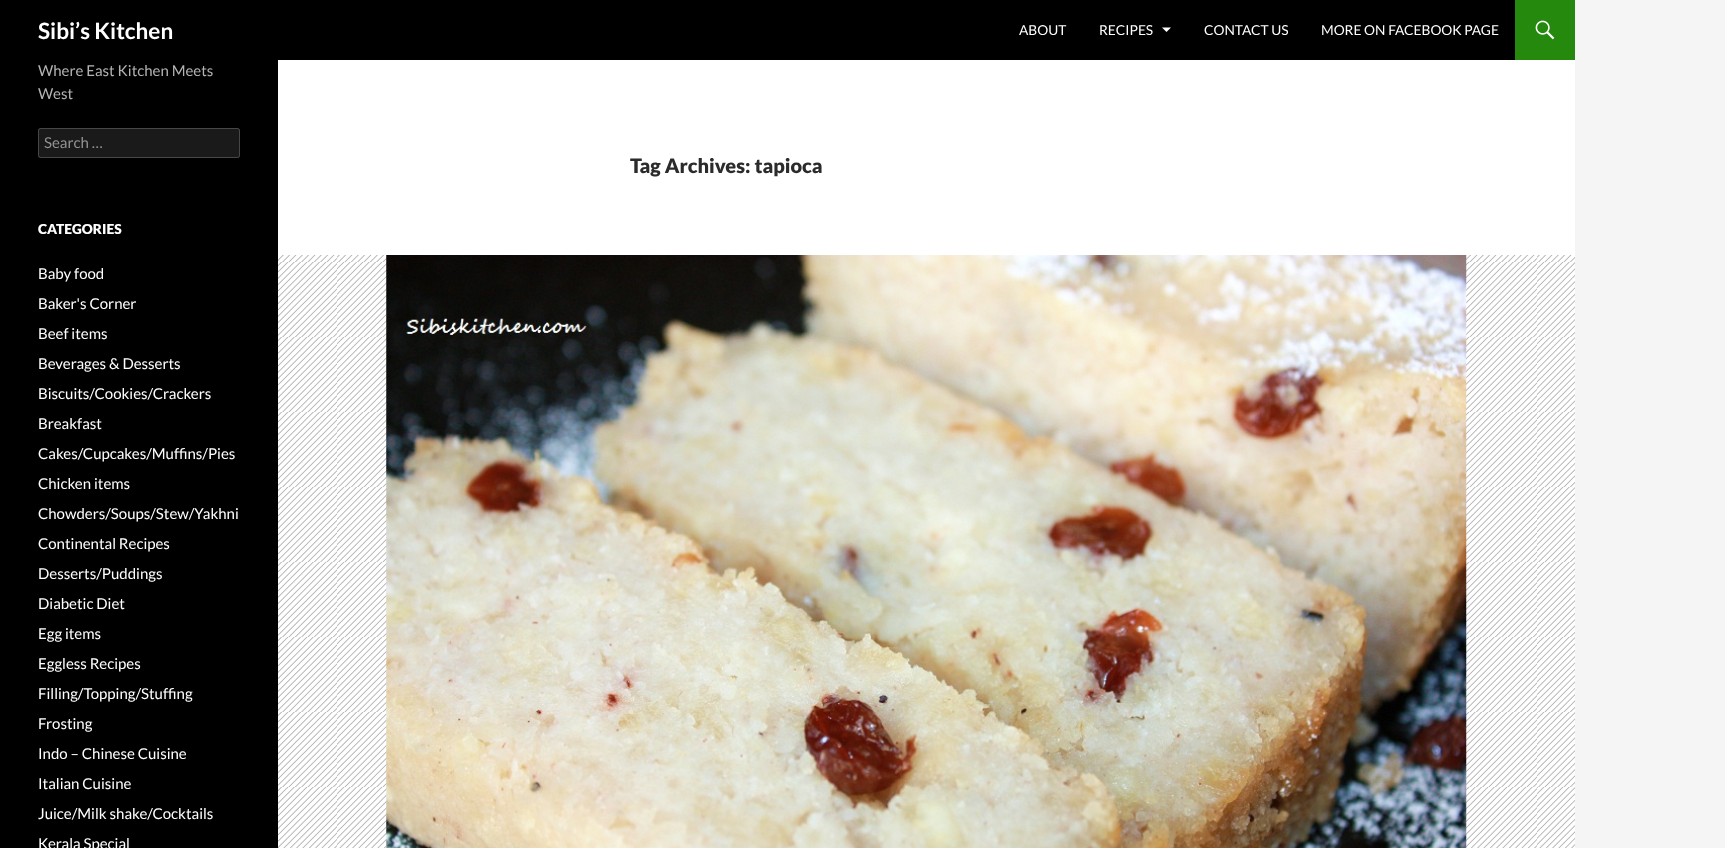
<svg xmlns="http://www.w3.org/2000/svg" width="1725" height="848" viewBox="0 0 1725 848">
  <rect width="100%" height="100%" fill="rgb(245,245,245)"/>
  <rect x="278" y="60" width="1297" height="195" fill="rgb(255,255,255)"/>
  <rect x="0" y="0" width="1515" height="60" fill="rgb(0,0,0)"/>
  <text x="38" y="39" font-family="Lato" font-size="22.5" font-weight="bold" fill="rgb(255,255,255)">Sibi’s Kitchen</text>
  <g font-family="Lato" font-size="13.75" fill="rgb(255,255,255)">
    <text x="1019" y="35">ABOUT</text>
    <text x="1099" y="35">RECIPES</text>
  </g>
  <path d="M1162 27.5L1166.5 32L1171 27.5Z" fill="rgb(255,255,255)"/>
  <g font-family="Lato" font-size="13.75" fill="rgb(255,255,255)">
    <text x="1204" y="35">CONTACT US</text>
    <text x="1321" y="35">MORE ON FACEBOOK PAGE</text>
  </g>
  <rect x="1515" y="0" width="60" height="60" fill="rgb(36,137,13)"/>
  <image x="1535" y="20" width="20" height="20" href="pic1.png"/>
  <rect x="0" y="60" width="278" height="788" fill="rgb(0,0,0)"/>
  <g font-family="Lato" font-size="15" fill="rgb(179,179,179)">
    <text>
      <tspan x="38" y="76">Where East Kitchen Meets</tspan>
      <tspan x="38" y="99">West</tspan>
    </text>
  </g>
  <rect x="38" y="128" width="202" height="30" rx="2.5" fill="rgb(26,26,26)"/>
  <rect x="38.5" y="128.5" width="201" height="29" rx="2" fill="none" stroke="rgba(255,255,255,0.2)"/>
  <text x="44" y="148" font-family="Lato" font-size="15" fill="rgb(147,147,147)">Search …</text>
  <text x="38" y="234" font-family="Lato" font-size="13.75" font-weight="900" fill="rgb(255,255,255)">CATEGORIES</text>
  <g font-family="Lato" font-size="15" fill="rgb(255,255,255)">
    <text x="38" y="279">Baby food</text>
    <text x="38" y="309">Baker's Corner</text>
    <text x="38" y="339">Beef items</text>
    <text x="38" y="369">Beverages &amp; Desserts</text>
    <text x="38" y="399">Biscuits/Cookies/Crackers</text>
    <text x="38" y="429">Breakfast</text>
    <text x="38" y="459">Cakes/Cupcakes/Muffins/Pies</text>
    <text x="38" y="489">Chicken items</text>
    <text x="38" y="519">Chowders/Soups/Stew/Yakhni</text>
    <text x="38" y="549">Continental Recipes</text>
    <text x="38" y="579">Desserts/Puddings</text>
    <text x="38" y="609">Diabetic Diet</text>
    <text x="38" y="639">Egg items</text>
    <text x="38" y="669">Eggless Recipes</text>
    <text x="38" y="699">Filling/Topping/Stuffing</text>
    <text x="38" y="729">Frosting</text>
    <text x="38" y="759">Indo – Chinese Cuisine</text>
    <text x="38" y="789">Italian Cuisine</text>
    <text x="38" y="819">Juice/Milk shake/Cocktails</text>
    <text x="38" y="849">Kerala Special</text>
  </g>
  <text x="630" y="173" font-family="Lato" font-size="20" font-weight="900" fill="rgb(43,43,43)">Tag Archives: tapioca</text>
  <rect x="278" y="255" width="1297" height="593" fill="rgb(178,178,178)"/>
  <image x="278" y="255" width="1297" height="593" href="pic2.png"/>
  <image x="386" y="255" width="1081" height="593" href="pic3.png"/>
</svg>
